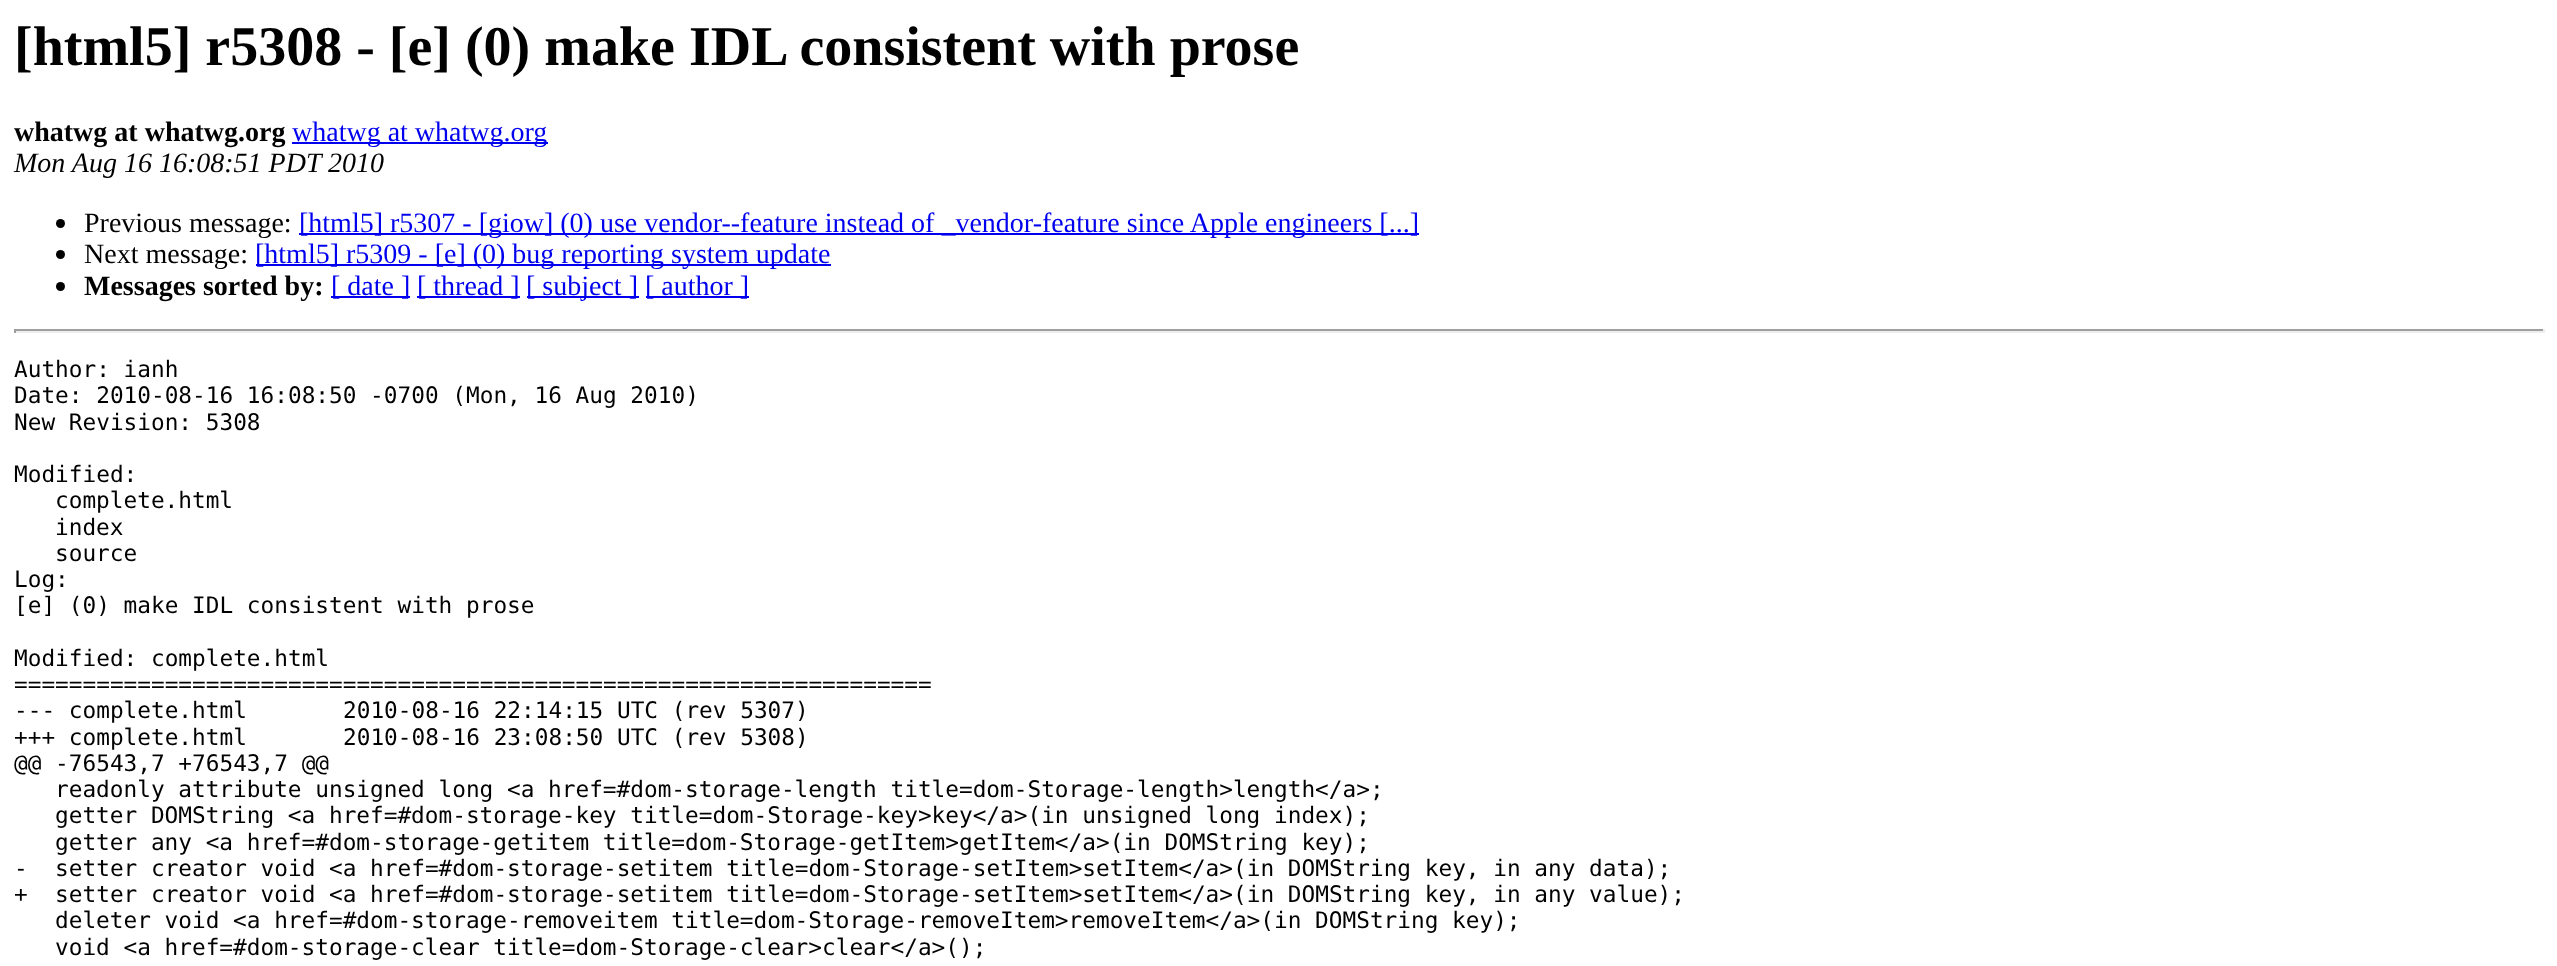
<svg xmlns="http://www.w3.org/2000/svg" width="2557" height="966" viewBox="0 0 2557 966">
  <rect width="100%" height="100%" fill="rgb(255,255,255)"/>
  <text x="14" y="65" font-family="Liberation Serif" font-size="56" font-weight="bold" fill="rgb(0,0,0)">[html5] r5308 - [e] (0) make IDL consistent with prose</text>
  <text x="14" y="141" font-family="Liberation Serif" font-size="28" font-weight="bold" fill="rgb(0,0,0)">whatwg at whatwg.org</text>
  <rect x="292" y="142" width="256" height="2" fill="rgb(0,0,238)"/>
  <text x="292" y="141" font-family="Liberation Serif" font-size="28" fill="rgb(0,0,238)">whatwg at whatwg.org</text>
  <text x="14" y="172" font-family="Liberation Serif" font-size="28" font-style="italic" fill="rgb(0,0,0)">Mon Aug 16 16:08:51 PDT 2010</text>
  <circle cx="60.5" cy="223.5" r="4.5" fill="rgb(0,0,0)"/>
  <text x="84" y="232" font-family="Liberation Serif" font-size="28" fill="rgb(0,0,0)">Previous message:</text>
  <rect x="299" y="233" width="1120" height="2" fill="rgb(0,0,238)"/>
  <text x="299" y="232" font-family="Liberation Serif" font-size="28" fill="rgb(0,0,238)">[html5] r5307 - [giow] (0) use vendor--feature instead of _vendor-feature since Apple engineers [...]</text>
  <circle cx="60.5" cy="254.5" r="4.5" fill="rgb(0,0,0)"/>
  <text x="84" y="263" font-family="Liberation Serif" font-size="28" fill="rgb(0,0,0)">Next message:</text>
  <rect x="256" y="264" width="575" height="2" fill="rgb(0,0,238)"/>
  <text x="255" y="263" font-family="Liberation Serif" font-size="28" fill="rgb(0,0,238)">[html5] r5309 - [e] (0) bug reporting system update</text>
  <circle cx="60.5" cy="286.5" r="4.5" fill="rgb(0,0,0)"/>
  <text x="84" y="295" font-family="Liberation Serif" font-size="28" font-weight="bold" fill="rgb(0,0,0)">Messages sorted by:</text>
  <rect x="331" y="296" width="79" height="2" fill="rgb(0,0,238)"/>
  <text x="331" y="295" font-family="Liberation Serif" font-size="28" fill="rgb(0,0,238)">[ date ]</text>
  <rect x="417" y="296" width="103" height="2" fill="rgb(0,0,238)"/>
  <text x="417" y="295" font-family="Liberation Serif" font-size="28" fill="rgb(0,0,238)">[ thread ]</text>
  <rect x="527" y="296" width="112" height="2" fill="rgb(0,0,238)"/>
  <text x="526" y="295" font-family="Liberation Serif" font-size="28" fill="rgb(0,0,238)">[ subject ]</text>
  <rect x="646" y="296" width="103" height="2" fill="rgb(0,0,238)"/>
  <text x="645" y="295" font-family="Liberation Serif" font-size="28" fill="rgb(0,0,238)">[ author ]</text>
  <rect x="14" y="329" width="2531" height="2" fill="rgb(159,159,159)"/>
  <rect x="2543" y="329" width="2" height="4" fill="rgb(238,238,238)"/>
  <rect x="14" y="331" width="2531" height="2" fill="rgb(238,238,238)"/>
  <rect x="14" y="329" width="2" height="4" fill="rgb(159,159,159)"/>
  <g font-family="DejaVu Sans Mono" font-size="22.75" fill="rgb(0,0,0)">
    <text>
      <tspan x="14" y="377">Author: ianh</tspan>
      <tspan x="14" y="403">Date: 2010-08-16 16:08:50 -0700 (Mon, 16 Aug 2010)</tspan>
      <tspan x="14" y="430">New Revision: 5308</tspan>
    </text>
    <text x="14" y="482">Modified:</text>
    <text>
      <tspan x="55" y="508">complete.html</tspan>
      <tspan x="55" y="535">index</tspan>
      <tspan x="55" y="561">source</tspan>
    </text>
    <text>
      <tspan x="14" y="587">Log:</tspan>
      <tspan x="14" y="613">[e] (0) make IDL consistent with prose</tspan>
    </text>
    <text>
      <tspan x="14" y="666">Modified: complete.html</tspan>
      <tspan x="14" y="692">===================================================================</tspan>
      <tspan x="14" y="718">--- complete.html</tspan>
    </text>
    <text x="343" y="718">2010-08-16 22:14:15 UTC (rev 5307)</text>
    <text x="14" y="745">+++ complete.html</text>
    <text x="343" y="745">2010-08-16 23:08:50 UTC (rev 5308)</text>
    <text x="14" y="771">@@ -76543,7 +76543,7 @@</text>
    <text>
      <tspan x="55" y="797">readonly attribute unsigned long &lt;a href=#dom-storage-length title=dom-Storage-length&gt;length&lt;/a&gt;;</tspan>
      <tspan x="55" y="823">getter DOMString &lt;a href=#dom-storage-key title=dom-Storage-key&gt;key&lt;/a&gt;(in unsigned long index);</tspan>
      <tspan x="55" y="850">getter any &lt;a href=#dom-storage-getitem title=dom-Storage-getItem&gt;getItem&lt;/a&gt;(in DOMString key);</tspan>
    </text>
    <text xml:space="preserve"><tspan x="14" y="876">-  setter creator void &lt;a href=#dom-storage-setitem title=dom-Storage-setItem&gt;setItem&lt;/a&gt;(in DOMString key, in any data);</tspan><tspan x="14" y="902">+  setter creator void &lt;a href=#dom-storage-setitem title=dom-Storage-setItem&gt;setItem&lt;/a&gt;(in DOMString key, in any value);</tspan></text>
    <text>
      <tspan x="55" y="928">deleter void &lt;a href=#dom-storage-removeitem title=dom-Storage-removeItem&gt;removeItem&lt;/a&gt;(in DOMString key);</tspan>
      <tspan x="55" y="955">void &lt;a href=#dom-storage-clear title=dom-Storage-clear&gt;clear&lt;/a&gt;();</tspan>
    </text>
  </g>
</svg>
